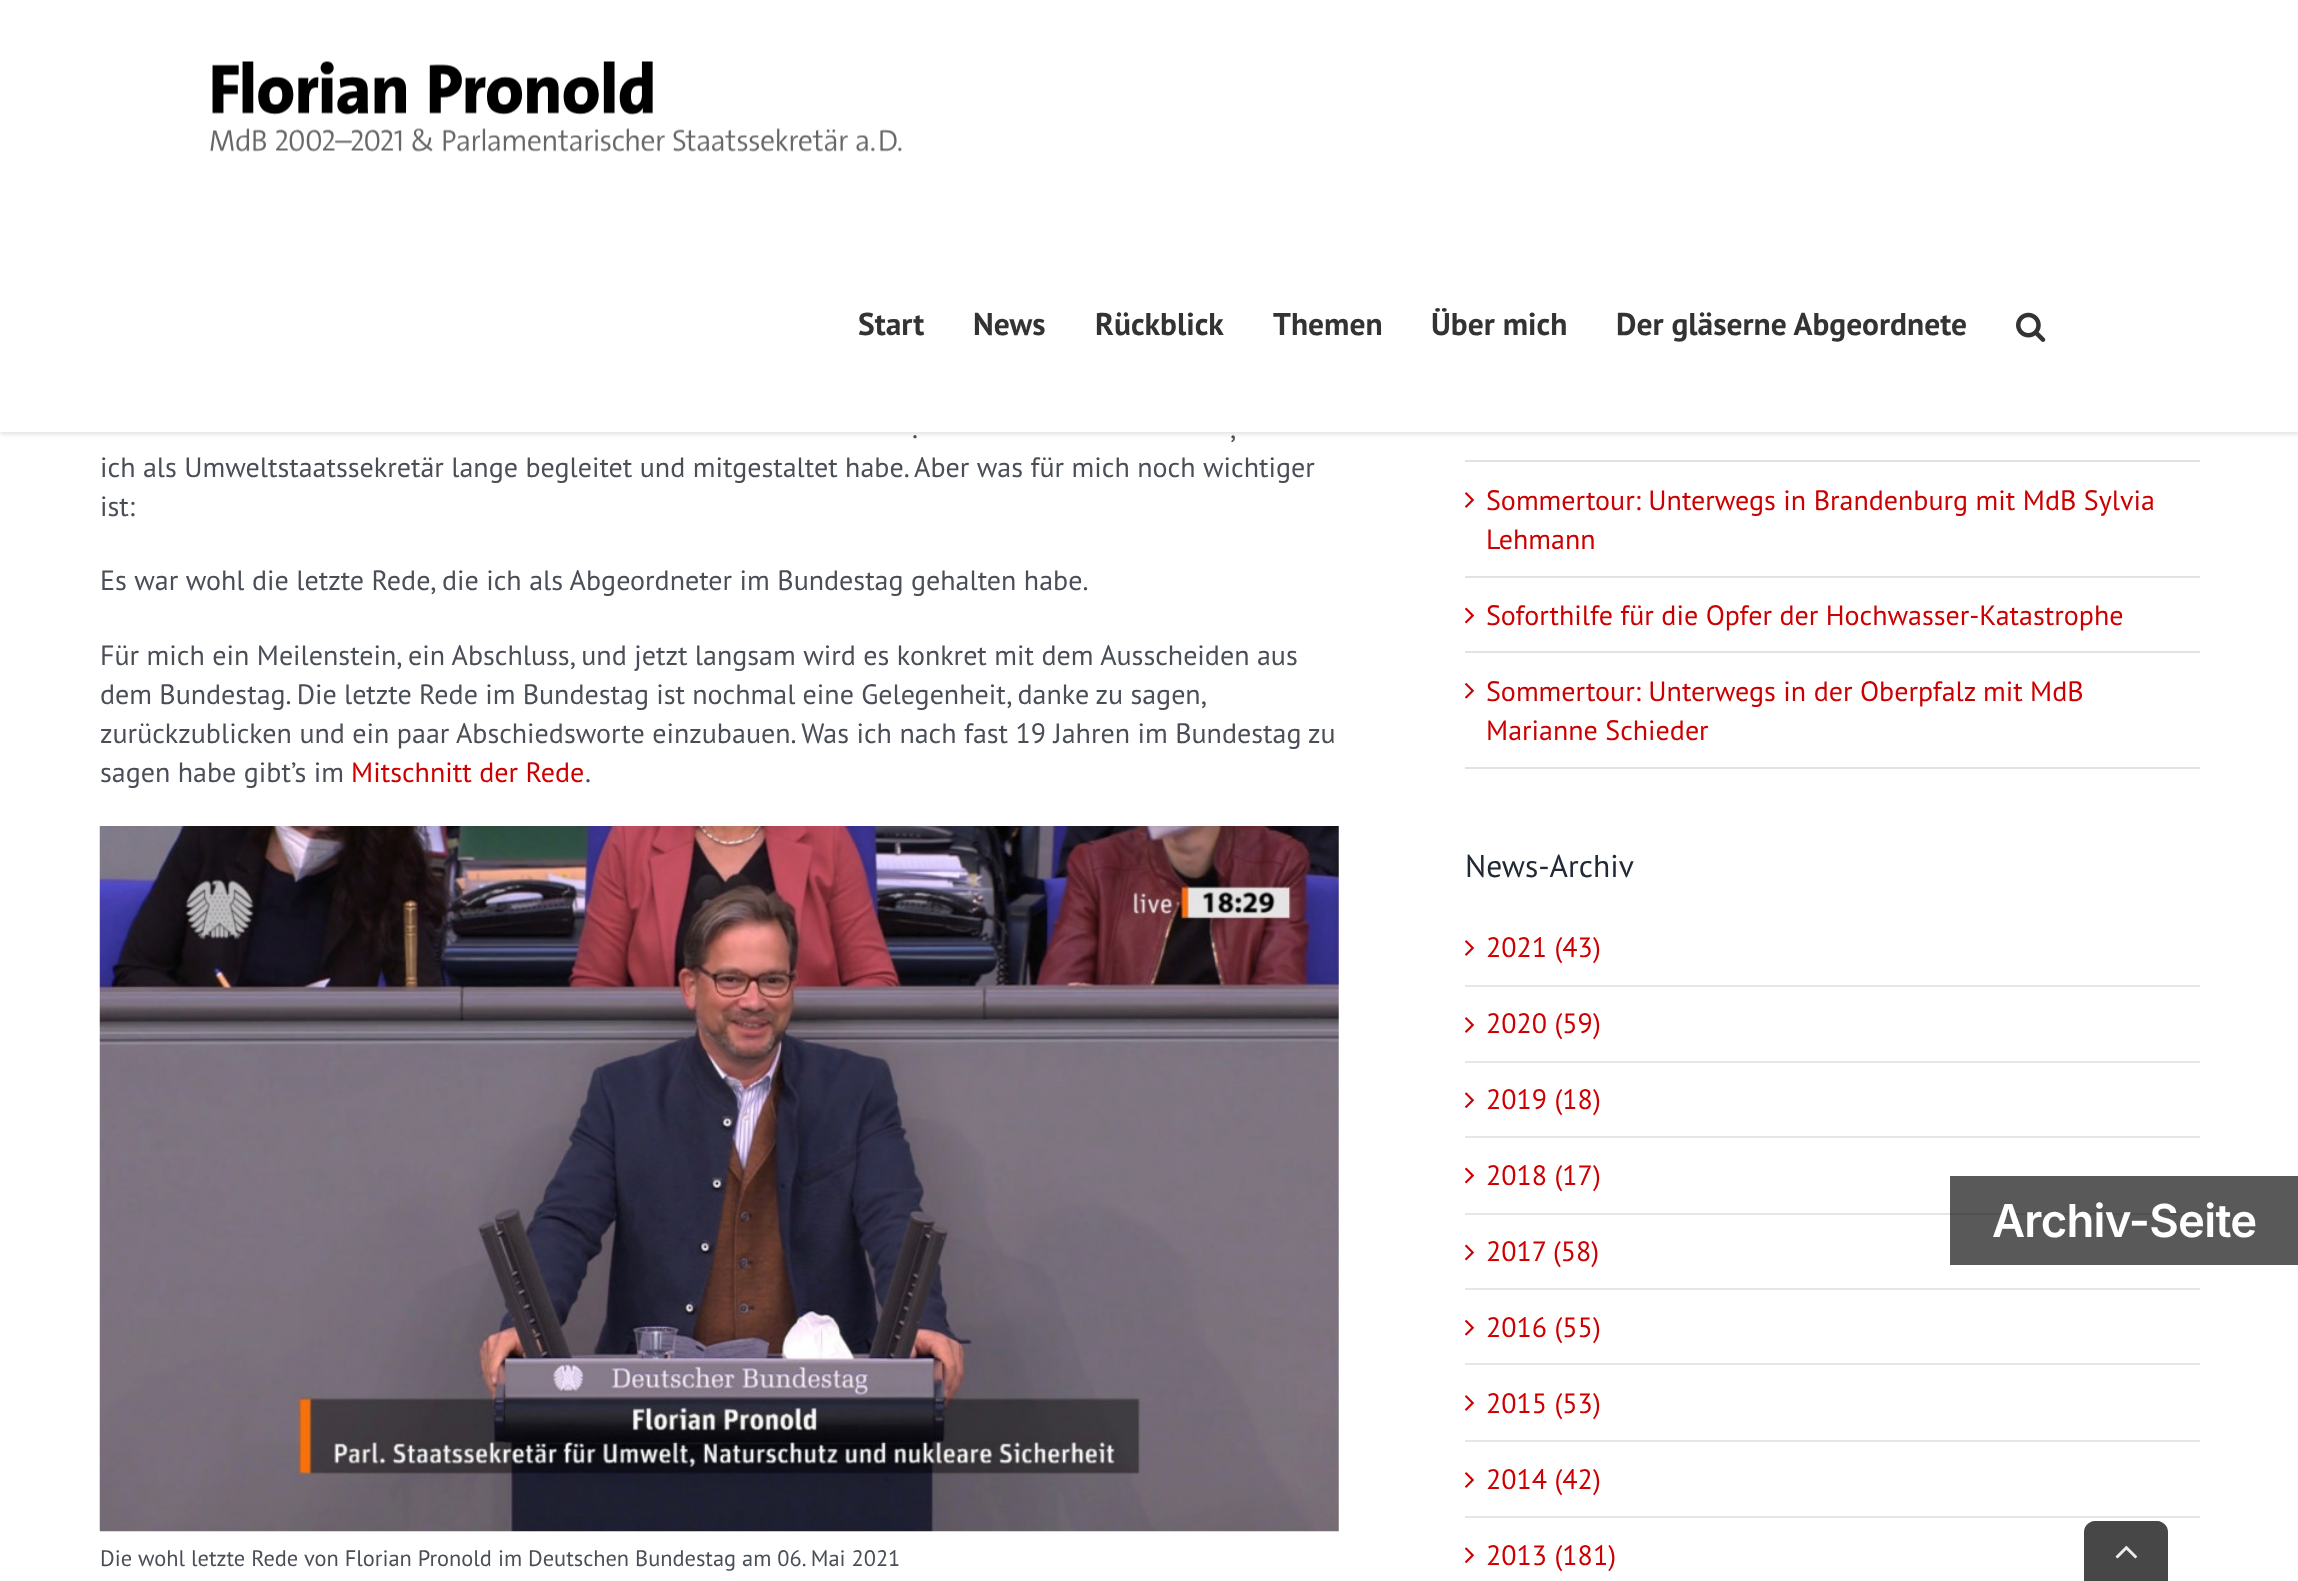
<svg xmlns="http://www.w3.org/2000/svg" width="2298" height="1581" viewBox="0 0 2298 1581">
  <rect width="100%" height="100%" fill="rgb(255,255,255)"/>
  <rect x="1950" y="1176" width="348" height="89" fill="rgb(89,89,89)"/>
  <rect x="0" y="2" width="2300" height="432" fill="rgba(0,0,0,0.12)" filter="blur(2.5px)"/>
  <rect x="0" y="0" width="2298" height="432" fill="rgb(255,255,255)"/>
  <image x="210" y="61" width="692" height="91" href="pic1.png"/>
  <g font-family="PT Sans" font-size="31.5" font-weight="bold" fill="rgb(51,51,51)">
    <text x="858" y="335">Start</text>
    <text x="973" y="335">News</text>
    <text x="1095" y="335">Rückblick</text>
    <text x="1273" y="335">Themen</text>
    <text x="1431" y="335">Über mich</text>
    <text x="1616" y="335">Der gläserne Abgeordnete</text>
  </g>
  <image x="2016" y="312" width="30" height="30" href="pic2.png"/>
  <g font-family="PT Sans" font-size="28" fill="rgb(74,78,87)">
    <text x="912" y="438">.</text>
    <text x="1230" y="438">,</text>
    <text>
      <tspan x="100" y="477">ich als Umweltstaatssekretär lange begleitet und mitgestaltet habe. Aber was für mich noch wichtiger</tspan>
      <tspan x="100" y="516">ist:</tspan>
    </text>
    <text x="100" y="590">Es war wohl die letzte Rede, die ich als Abgeordneter im Bundestag gehalten habe.</text>
    <text>
      <tspan x="100" y="665">Für mich ein Meilenstein, ein Abschluss, und jetzt langsam wird es konkret mit dem Ausscheiden aus</tspan>
      <tspan x="100" y="704" word-spacing="-0.2">dem Bundestag. Die letzte Rede im Bundestag ist nochmal eine Gelegenheit, danke zu sagen,</tspan>
      <tspan x="100" y="743">zurückzublicken und ein paar Abschiedsworte einzubauen. Was ich nach fast 19 Jahren im Bundestag zu</tspan>
      <tspan x="100" y="782">sagen habe gibt’s im</tspan>
    </text>
  </g>
  <text x="351" y="782" font-family="PT Sans" font-size="28" fill="rgb(204,0,0)">Mitschnitt der Rede</text>
  <text x="585" y="782" font-family="PT Sans" font-size="28" fill="rgb(74,78,87)">.</text>
  <image x="99" y="826" width="1240" height="706" href="pic3.png"/>
  <text x="100" y="1566" font-family="PT Sans" font-size="22.4" fill="rgb(74,78,87)">Die wohl letzte Rede von Florian Pronold im Deutschen Bundestag am 06. Mai 2021</text>
  <rect x="1465" y="460" width="735" height="2" fill="rgb(226,226,226)"/>
  <rect x="1465" y="576" width="735" height="2" fill="rgb(226,226,226)"/>
  <image x="1465" y="492" width="9" height="16" href="pic4.png"/>
  <g font-family="PT Sans" font-size="28" fill="rgb(204,0,0)">
    <text>
      <tspan x="1486" y="510">Sommertour: Unterwegs in Brandenburg mit MdB Sylvia</tspan>
      <tspan x="1486" y="549">Lehmann</tspan>
    </text>
  </g>
  <rect x="1465" y="651" width="735" height="2" fill="rgb(226,226,226)"/>
  <image x="1465" y="607" width="9" height="17" href="pic5.png"/>
  <text x="1486" y="625" font-family="PT Sans" font-size="28" fill="rgb(204,0,0)">Soforthilfe für die Opfer der Hochwasser-Katastrophe</text>
  <rect x="1465" y="767" width="735" height="2" fill="rgb(226,226,226)"/>
  <image x="1465" y="683" width="9" height="16" href="pic6.png"/>
  <g font-family="PT Sans" font-size="28" fill="rgb(204,0,0)">
    <text>
      <tspan x="1486" y="701">Sommertour: Unterwegs in der Oberpfalz mit MdB</tspan>
      <tspan x="1486" y="740">Marianne Schieder</tspan>
    </text>
  </g>
  <text x="1465" y="877" font-family="PT Sans" font-size="31.5" fill="rgb(33,41,52)">News-Archiv</text>
  <rect x="1465" y="985" width="735" height="2" fill="rgb(231,230,230)"/>
  <image x="1465" y="940" width="9" height="16" href="pic4.png"/>
  <text x="1486" y="957" font-family="PT Sans" font-size="28" fill="rgb(204,0,0)">2021 (43)</text>
  <rect x="1465" y="1061" width="735" height="2" fill="rgb(231,230,230)"/>
  <image x="1465" y="1017" width="9" height="16" href="pic4.png"/>
  <text x="1486" y="1033" font-family="PT Sans" font-size="28" fill="rgb(204,0,0)">2020 (59)</text>
  <rect x="1465" y="1136" width="735" height="2" fill="rgb(231,230,230)"/>
  <image x="1465" y="1092" width="9" height="16" href="pic7.png"/>
  <text x="1486" y="1109" font-family="PT Sans" font-size="28" fill="rgb(204,0,0)">2019 (18)</text>
  <rect x="1465" y="1213" width="485" height="2" fill="rgb(231,230,230)"/>
  <rect x="1950" y="1213" width="250" height="2" fill="rgb(81,81,81)"/>
  <image x="1465" y="1167" width="9" height="17" href="pic5.png"/>
  <text x="1486" y="1185" font-family="PT Sans" font-size="28" fill="rgb(204,0,0)">2018 (17)</text>
  <rect x="1465" y="1288" width="735" height="2" fill="rgb(231,230,230)"/>
  <image x="1465" y="1244" width="9" height="17" href="pic5.png"/>
  <text x="1486" y="1261" font-family="PT Sans" font-size="28" fill="rgb(204,0,0)">2017 (58)</text>
  <rect x="1465" y="1363" width="735" height="2" fill="rgb(231,230,230)"/>
  <image x="1465" y="1320" width="9" height="16" href="pic6.png"/>
  <text x="1486" y="1337" font-family="PT Sans" font-size="28" fill="rgb(204,0,0)">2016 (55)</text>
  <rect x="1465" y="1440" width="735" height="2" fill="rgb(231,230,230)"/>
  <image x="1465" y="1395" width="9" height="16" href="pic4.png"/>
  <text x="1486" y="1413" font-family="PT Sans" font-size="28" fill="rgb(204,0,0)">2015 (53)</text>
  <rect x="1465" y="1516" width="735" height="2" fill="rgb(231,230,230)"/>
  <image x="1465" y="1472" width="9" height="16" href="pic4.png"/>
  <text x="1486" y="1489" font-family="PT Sans" font-size="28" fill="rgb(204,0,0)">2014 (42)</text>
  <image x="1465" y="1547" width="9" height="16" href="pic7.png"/>
  <text x="1486" y="1565" font-family="PT Sans" font-size="28" fill="rgb(204,0,0)">2013 (181)</text>
  <text x="1992" y="1237" font-family="Inter" font-size="45.5" font-weight="600" letter-spacing="-0.75" fill="rgb(255,255,255)">Archiv-Seite</text>
  <path d="M2095 1521H2157C2163 1521 2168 1526 2168 1532V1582H2084V1532C2084 1526 2089 1521 2095 1521Z" fill="rgb(71,71,71)"/>
  <image x="2115" y="1545" width="22" height="14" href="pic8.png"/>
</svg>
